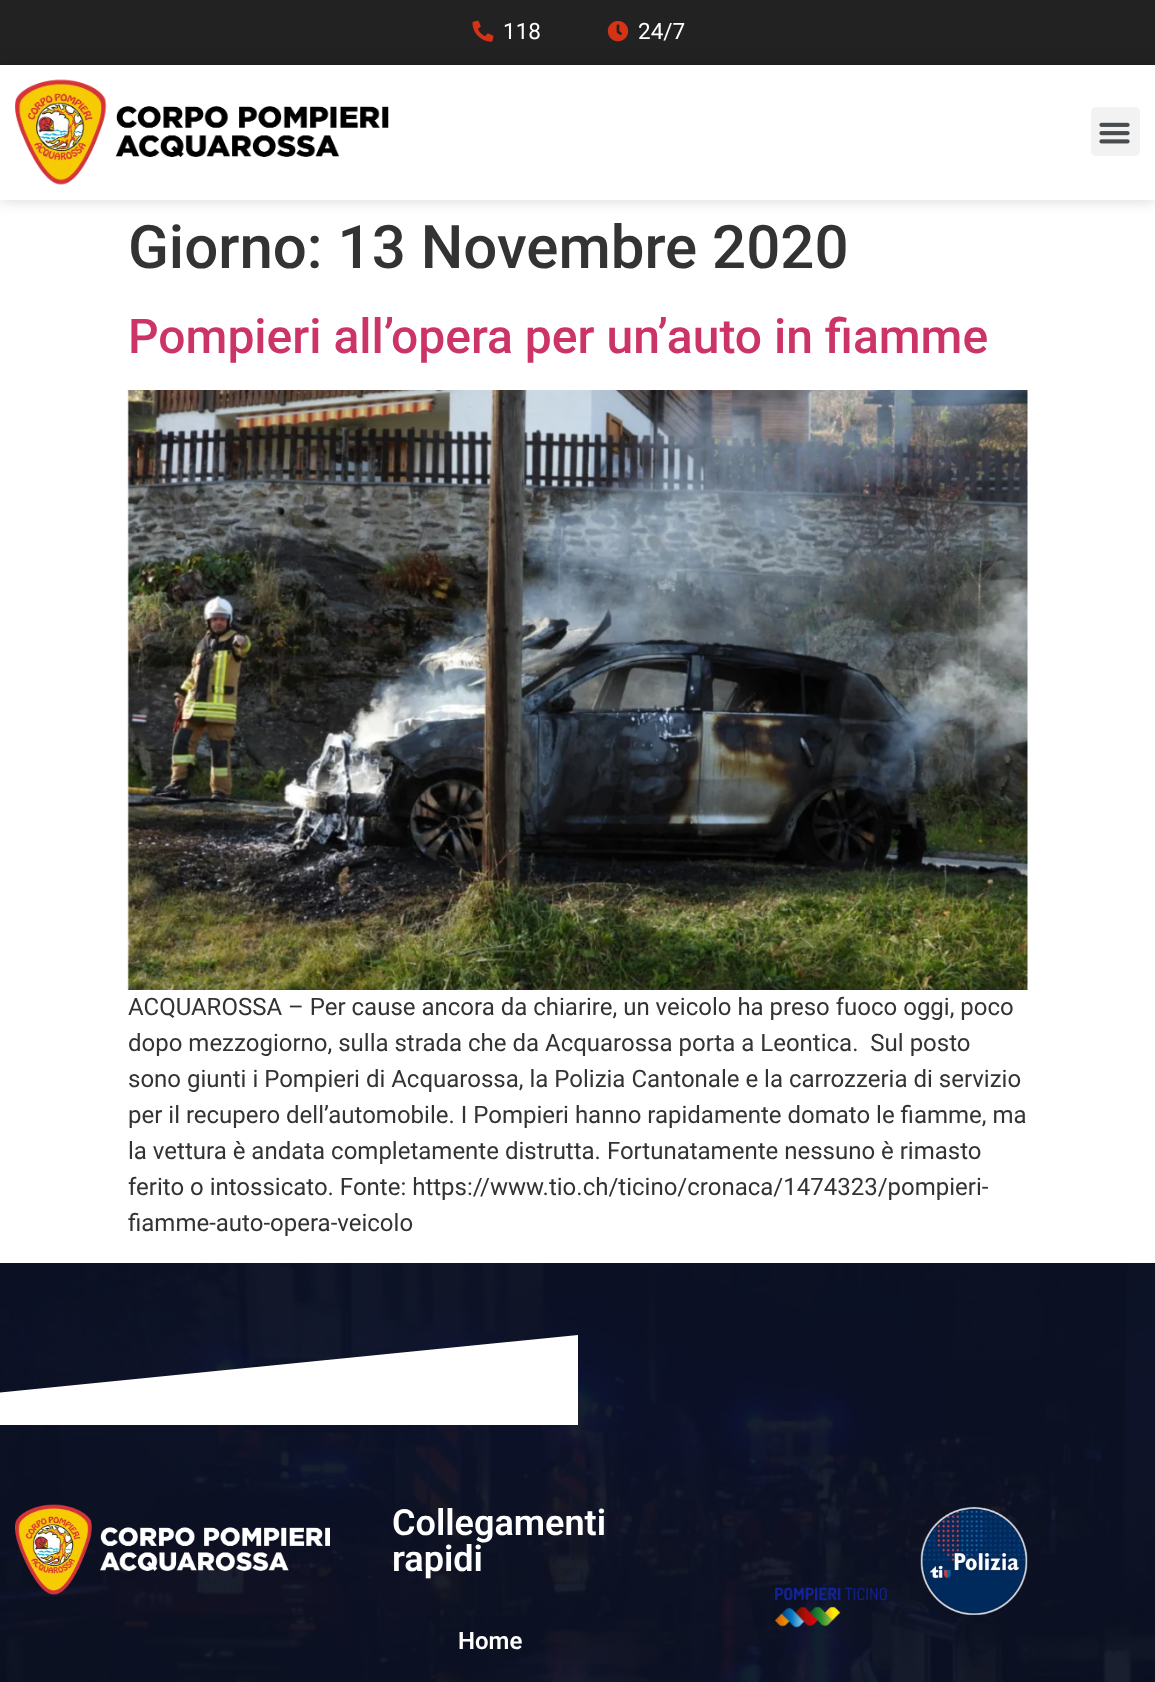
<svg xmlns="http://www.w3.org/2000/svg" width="1155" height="1682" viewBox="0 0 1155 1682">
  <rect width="100%" height="100%" fill="rgb(255,255,255)"/>
  <rect x="0" y="0" width="1155" height="65" fill="rgb(34,34,34)"/>
  <image x="472" y="20" width="22" height="22" href="pic1.png"/>
  <text x="503" y="39" font-family="Roboto" font-size="22.5" fill="rgb(255,255,255)">118</text>
  <image x="607" y="21" width="22" height="21" href="pic2.png"/>
  <text x="638" y="39" font-family="Roboto" font-size="22.5" fill="rgb(255,255,255)">24/7</text>
  <rect x="0" y="65" width="1155" height="135" fill="rgba(0,0,0,0.17)" filter="blur(7.5px)"/>
  <rect x="0" y="65" width="1155" height="135" fill="rgb(255,255,255)"/>
  <image x="15" y="79" width="374" height="106" href="pic3.png"/>
  <rect x="1091" y="107" width="49" height="49" rx="5" fill="rgb(242,242,242)"/>
  <image x="1099" y="122" width="31" height="22" href="pic4.png"/>
  <text x="128" y="268" font-family="Roboto" font-size="60" font-weight="500" fill="rgb(51,51,51)">Giorno: 13 Novembre 2020</text>
  <text x="128" y="353" font-family="Roboto" font-size="48" font-weight="500" fill="rgb(204,51,102)">Pompieri all’opera per un’auto in fiamme</text>
  <image x="127" y="390" width="901" height="600" href="pic5.png"/>
  <g font-family="Roboto" font-size="24" fill="rgb(51,51,51)">
    <text xml:space="preserve"><tspan x="128" y="1015">ACQUAROSSA – Per cause ancora da chiarire, un veicolo ha preso fuoco oggi, poco</tspan><tspan x="128" y="1051">dopo mezzogiorno, sulla strada che da Acquarossa porta a Leontica.  Sul posto</tspan><tspan x="128" y="1087">sono giunti i Pompieri di Acquarossa, la Polizia Cantonale e la carrozzeria di servizio</tspan><tspan x="128" y="1123">per il recupero dell’automobile. I Pompieri hanno rapidamente domato le fiamme, ma</tspan><tspan x="128" y="1159">la vettura è andata completamente distrutta. Fortunatamente nessuno è rimasto</tspan><tspan x="128" y="1195">ferito o intossicato. Fonte: https://www.tio.ch/ticino/cronaca/1474323/pompieri-</tspan><tspan x="128" y="1231">fiamme-auto-opera-veicolo</tspan></text>
  </g>
  <image x="0" y="1263" width="1155" height="419" href="pic6.png"/>
  <path d="M-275 1420L578 1335V1425H-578V1335Z" fill="rgb(255,255,255)"/>
  <image x="15" y="1504" width="315" height="91" href="pic7.png"/>
  <g font-family="Roboto" font-size="36" font-weight="600" fill="rgb(255,255,255)">
    <text>
      <tspan x="392" y="1535">Collegamenti</tspan>
      <tspan x="392" y="1571">rapidi</tspan>
    </text>
  </g>
  <text x="458" y="1649" font-family="Roboto" font-size="24" font-weight="600" fill="rgb(255,255,255)">Home</text>
  <image x="775" y="1587" width="112" height="41" href="pic8.png"/>
  <image x="920" y="1507" width="108" height="109" href="pic9.png"/>
</svg>
